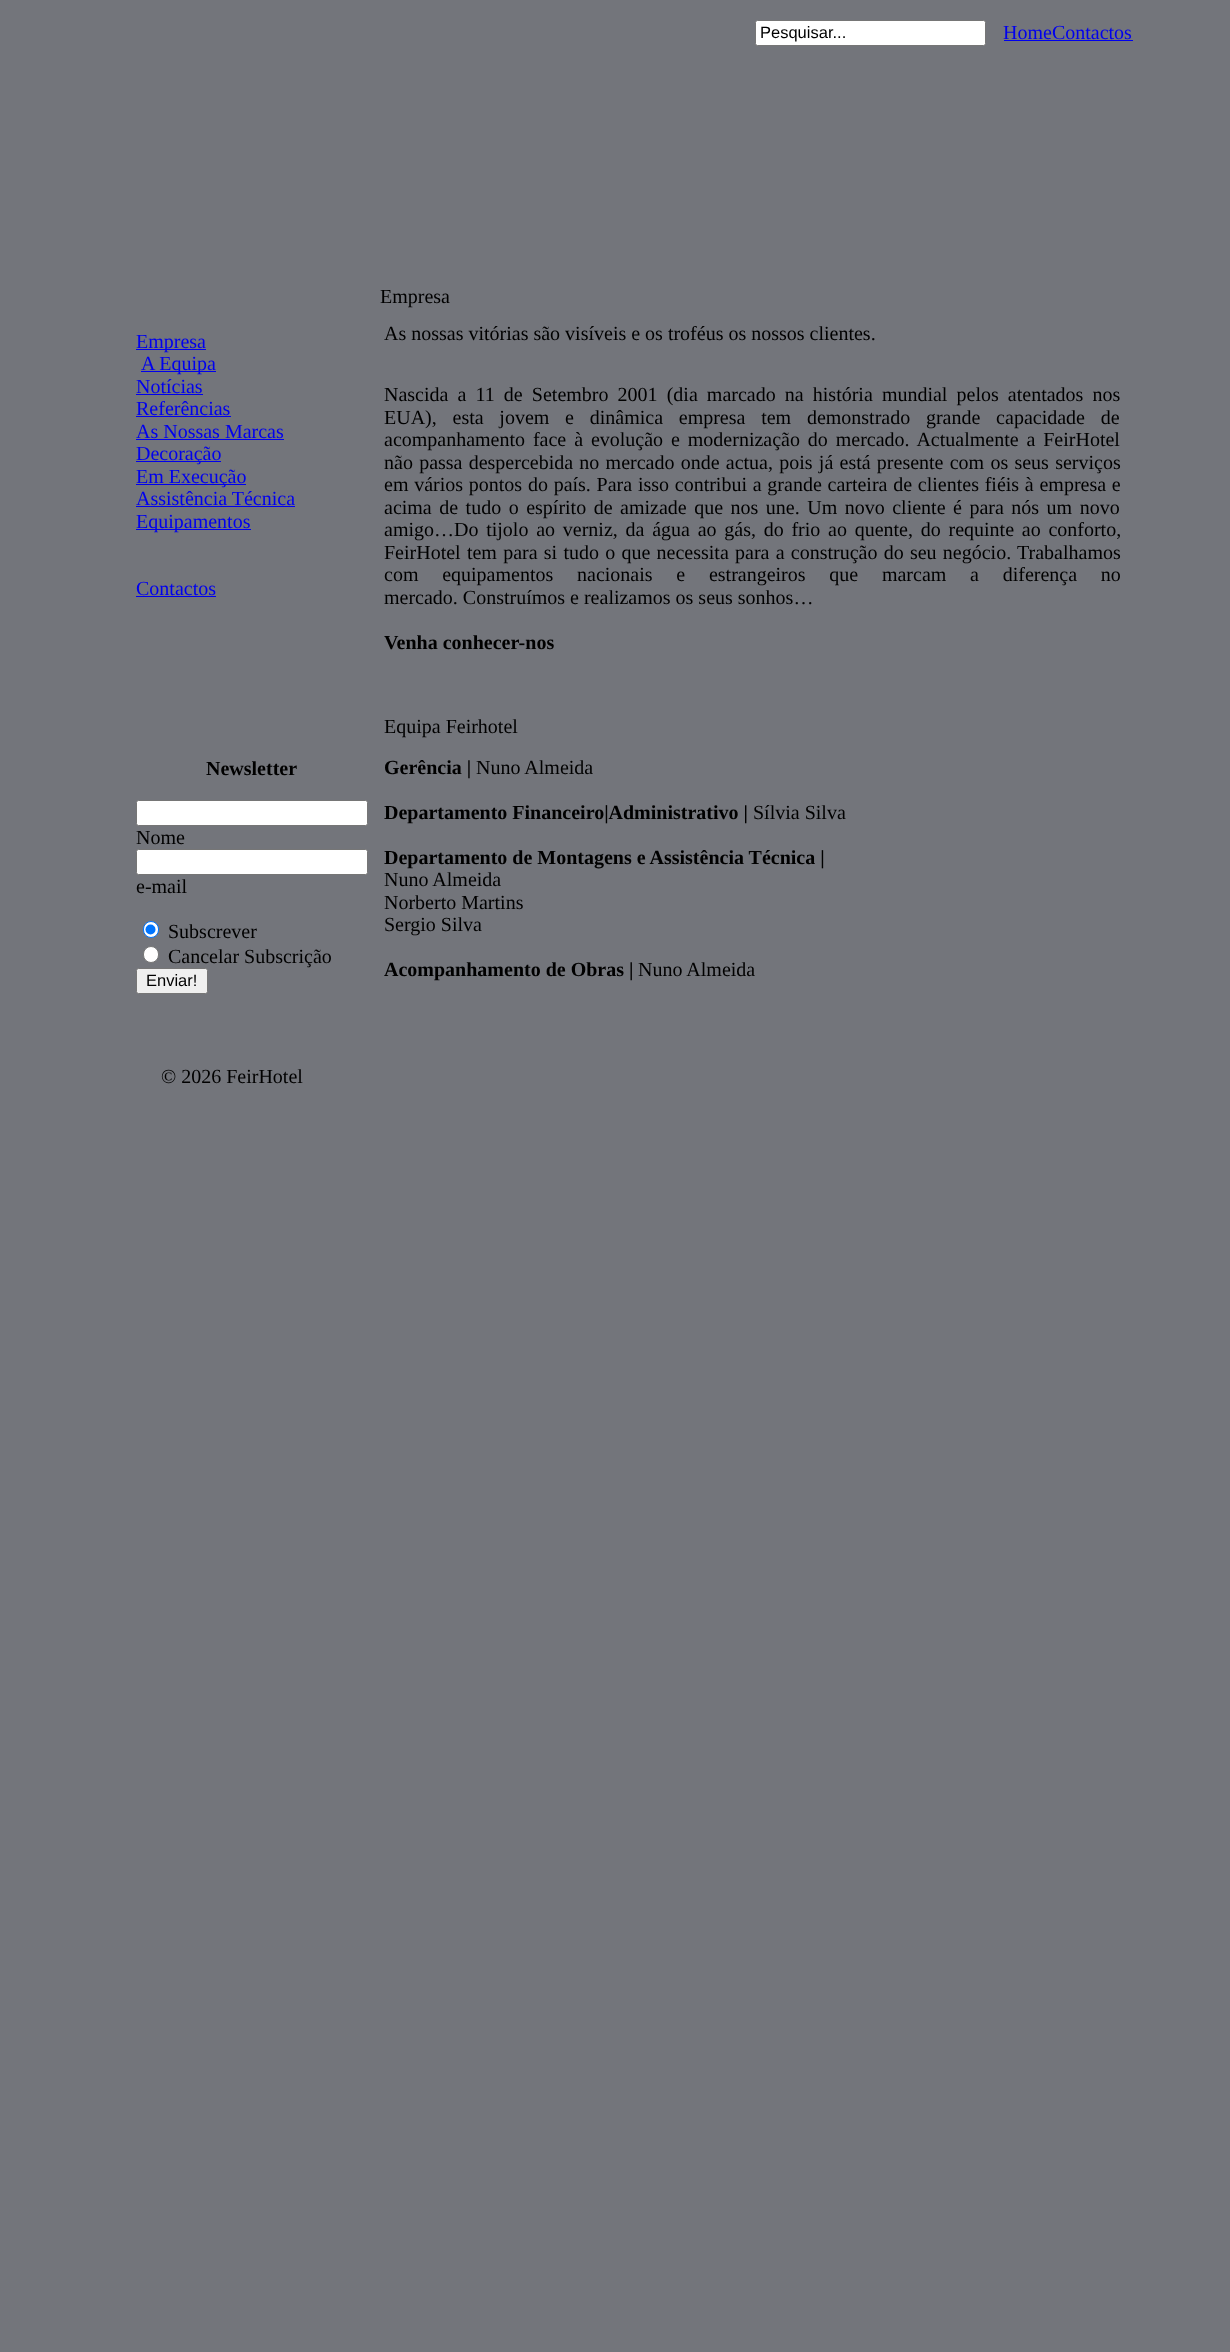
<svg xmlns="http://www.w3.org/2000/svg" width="1230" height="2352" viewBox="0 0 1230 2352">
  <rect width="100%" height="100%" fill="rgb(115,117,123)"/>
  <rect x="755.5" y="20.5" width="230" height="25" rx="2" fill="rgb(255,255,255)" stroke="rgb(118,118,118)"/>
  <text x="760" y="38" font-family="Liberation Sans" font-size="16.5" fill="rgb(0,0,0)">Pesquisar...</text>
  <text x="1003" y="39" font-family="Liberation Serif" font-size="20" fill="rgb(0,0,238)">HomeContactos</text>
  <rect x="1004" y="40" width="129" height="1" fill="rgb(0,0,238)"/>
  <rect x="136" y="349" width="70" height="1" fill="rgb(0,0,238)"/>
  <text x="136" y="348" font-family="Liberation Serif" font-size="20" fill="rgb(0,0,238)">Empresa</text>
  <rect x="141" y="371" width="75" height="1" fill="rgb(0,0,238)"/>
  <g font-family="Liberation Serif" font-size="20" fill="rgb(0,0,238)">
    <text x="141" y="370">A Equipa</text>
    <text x="136" y="393">Notícias</text>
  </g>
  <rect x="136" y="394" width="67" height="1" fill="rgb(0,0,238)"/>
  <text x="136" y="415" font-family="Liberation Serif" font-size="20" fill="rgb(0,0,238)">Referências</text>
  <rect x="136" y="416" width="95" height="1" fill="rgb(0,0,238)"/>
  <text x="136" y="438" font-family="Liberation Serif" font-size="20" fill="rgb(0,0,238)">As Nossas Marcas</text>
  <rect x="136" y="439" width="148" height="1" fill="rgb(0,0,238)"/>
  <rect x="136" y="461" width="85" height="1" fill="rgb(0,0,238)"/>
  <text x="136" y="460" font-family="Liberation Serif" font-size="20" fill="rgb(0,0,238)">Decoração</text>
  <rect x="136" y="484" width="110" height="1" fill="rgb(0,0,238)"/>
  <g font-family="Liberation Serif" font-size="20" fill="rgb(0,0,238)">
    <text>
      <tspan x="136" y="483">Em Execução</tspan>
      <tspan x="136" y="505">Assistência Técnica</tspan>
    </text>
  </g>
  <rect x="136" y="506" width="159" height="1" fill="rgb(0,0,238)"/>
  <rect x="136" y="529" width="115" height="1" fill="rgb(0,0,238)"/>
  <g font-family="Liberation Serif" font-size="20" fill="rgb(0,0,238)">
    <text x="136" y="528">Equipamentos</text>
    <text x="136" y="595">Contactos</text>
  </g>
  <rect x="136" y="596" width="80" height="1" fill="rgb(0,0,238)"/>
  <text x="206" y="775" font-family="Liberation Serif" font-size="20" font-weight="bold" fill="rgb(0,0,0)">Newsletter</text>
  <rect x="136.5" y="800.5" width="231" height="25" rx="2" fill="rgb(255,255,255)" stroke="rgb(118,118,118)"/>
  <text x="136" y="844" font-family="Liberation Serif" font-size="20" fill="rgb(0,0,0)">Nome</text>
  <rect x="136.5" y="849.5" width="231" height="25" rx="2" fill="rgb(255,255,255)" stroke="rgb(118,118,118)"/>
  <text x="136" y="893" font-family="Liberation Serif" font-size="20" fill="rgb(0,0,0)">e-mail</text>
  <rect x="143.5" y="921.5" width="15" height="16" rx="7.5" fill="rgb(255,255,255)" stroke="rgb(0,117,255)"/>
  <circle cx="150.5" cy="929.5" r="5" fill="rgb(0,117,255)"/>
  <text x="168" y="938" font-family="Liberation Serif" font-size="20" fill="rgb(0,0,0)">Subscrever</text>
  <rect x="143.5" y="946.5" width="15" height="16" rx="7.5" fill="rgb(255,255,255)" stroke="rgb(118,118,118)"/>
  <text x="168" y="963" font-family="Liberation Serif" font-size="20" fill="rgb(0,0,0)">Cancelar Subscrição</text>
  <rect x="136.5" y="968.5" width="71" height="25" rx="2" fill="rgb(239,239,239)" stroke="rgb(118,118,118)"/>
  <text x="146" y="986" font-family="Liberation Sans" font-size="16.5" fill="rgb(0,0,0)">Enviar!</text>
  <g font-family="Liberation Serif" font-size="20" fill="rgb(0,0,0)">
    <text x="380" y="303">Empresa</text>
    <text x="384" y="340">As nossas vitórias são visíveis e os troféus os nossos clientes.</text>
    <text>
      <tspan x="384" y="401" word-spacing="4.1">Nascida a 11 de Setembro 2001 (dia marcado na história mundial pelos atentados nos</tspan>
      <tspan x="384" y="424" word-spacing="10.75">EUA), esta jovem e dinâmica empresa tem demonstrado grande capacidade de</tspan>
      <tspan x="384" y="446" word-spacing="2.9">acompanhamento face à evolução e modernização do mercado. Actualmente a FeirHotel</tspan>
      <tspan x="384" y="469" word-spacing="1.25">não passa despercebida no mercado onde actua, pois já está presente com os seus serviços</tspan>
      <tspan x="384" y="491" word-spacing="0.75">em vários pontos do país. Para isso contribui a grande carteira de clientes fiéis à empresa e</tspan>
      <tspan x="384" y="514" word-spacing="2.5">acima de tudo o espírito de amizade que nos une. Um novo cliente é para nós um novo</tspan>
      <tspan x="384" y="536" word-spacing="2.75">amigo…Do tijolo ao verniz, da água ao gás, do frio ao quente, do requinte ao conforto,</tspan>
      <tspan x="384" y="559" word-spacing="1.25">FeirHotel tem para si tudo o que necessita para a construção do seu negócio. Trabalhamos</tspan>
      <tspan x="384" y="581" word-spacing="18.75">com equipamentos nacionais e estrangeiros que marcam a diferença no</tspan>
      <tspan x="384" y="604">mercado. Construímos e realizamos os seus sonhos…</tspan>
    </text>
  </g>
  <text x="384" y="649" font-family="Liberation Serif" font-size="20" font-weight="bold" fill="rgb(0,0,0)">Venha conhecer-nos</text>
  <text x="384" y="733" font-family="Liberation Serif" font-size="20" fill="rgb(0,0,0)">Equipa Feirhotel</text>
  <text x="384" y="774" font-family="Liberation Serif" font-size="20" font-weight="bold" fill="rgb(0,0,0)">Gerência |</text>
  <text x="476" y="774" font-family="Liberation Serif" font-size="20" fill="rgb(0,0,0)">Nuno Almeida</text>
  <text x="384" y="819" font-family="Liberation Serif" font-size="20" font-weight="bold" fill="rgb(0,0,0)">Departamento Financeiro|Administrativo |</text>
  <text x="753" y="819" font-family="Liberation Serif" font-size="20" fill="rgb(0,0,0)">Sílvia Silva</text>
  <text x="384" y="864" font-family="Liberation Serif" font-size="20" font-weight="bold" fill="rgb(0,0,0)">Departamento de Montagens e Assistência Técnica |</text>
  <g font-family="Liberation Serif" font-size="20" fill="rgb(0,0,0)">
    <text>
      <tspan x="384" y="886">Nuno Almeida</tspan>
      <tspan x="384" y="909">Norberto Martins</tspan>
      <tspan x="384" y="931">Sergio Silva</tspan>
    </text>
  </g>
  <text x="384" y="976" font-family="Liberation Serif" font-size="20" font-weight="bold" fill="rgb(0,0,0)">Acompanhamento de Obras |</text>
  <g font-family="Liberation Serif" font-size="20" fill="rgb(0,0,0)">
    <text x="638" y="976">Nuno Almeida</text>
    <text x="161" y="1083">© 2026 FeirHotel</text>
  </g>
</svg>
